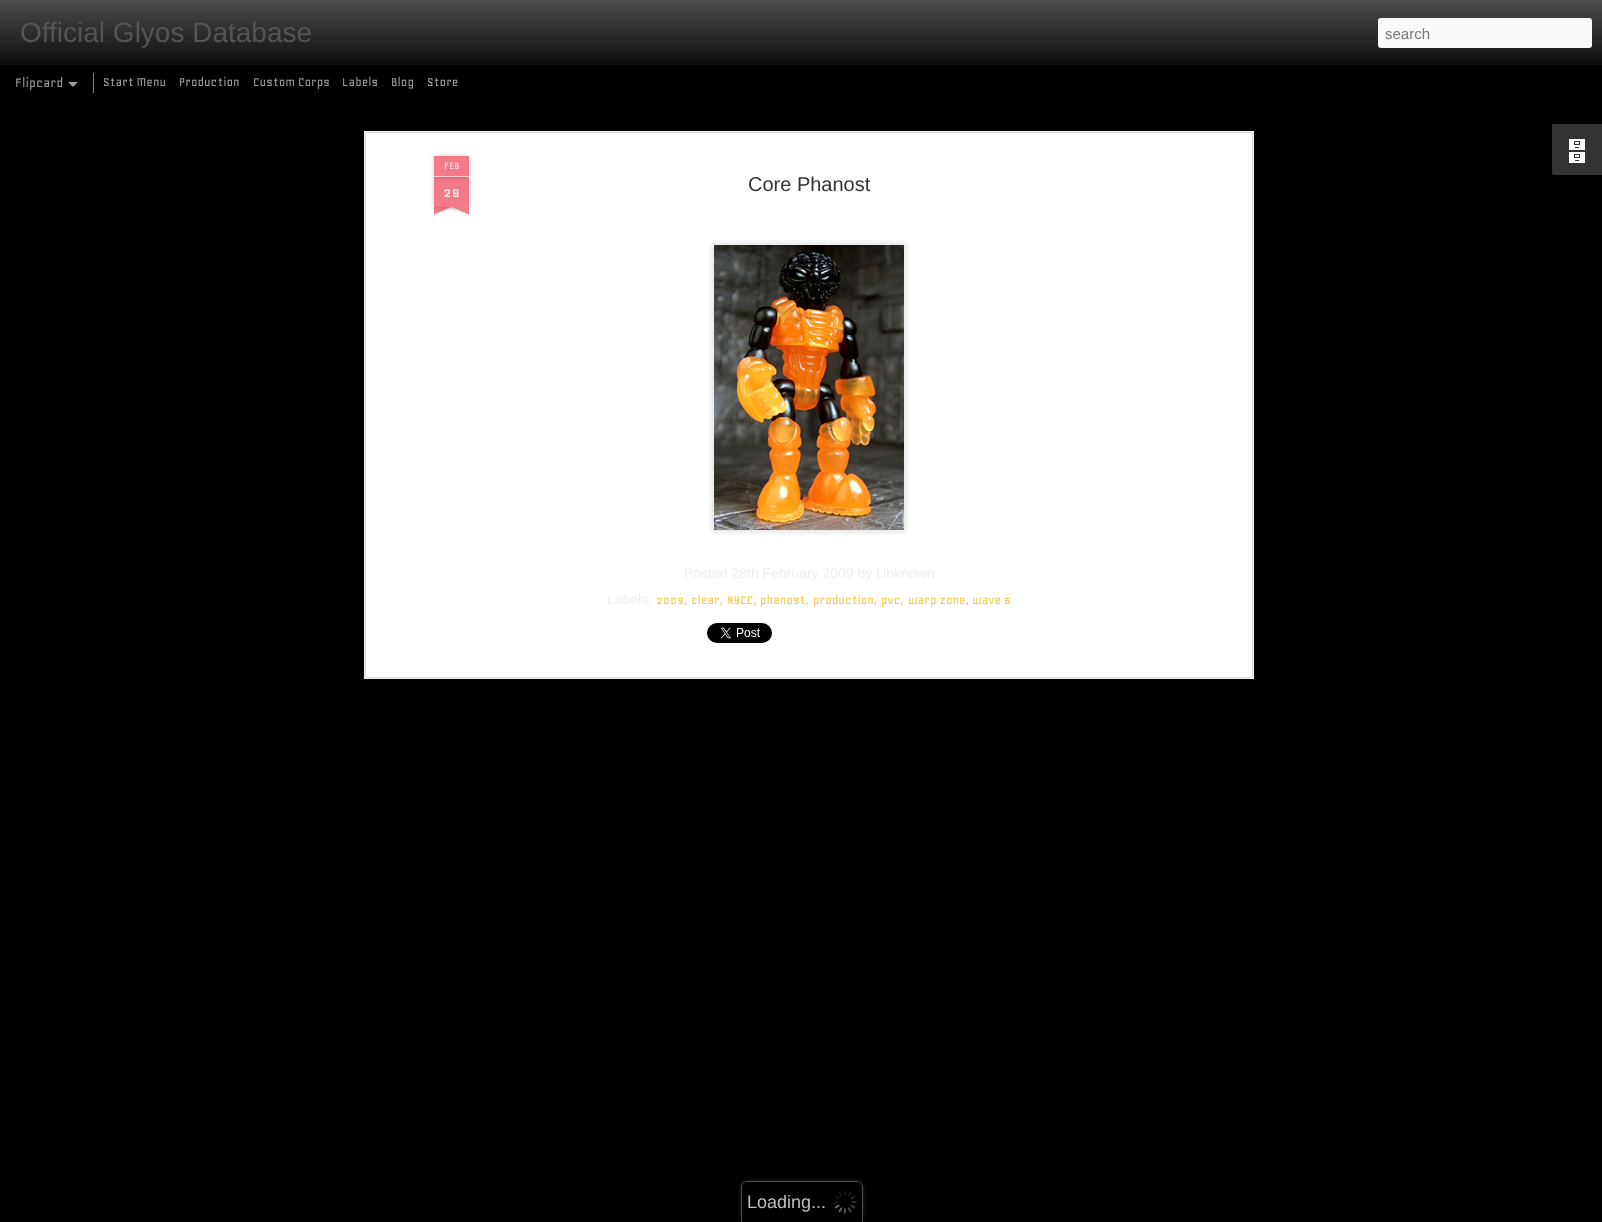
<svg xmlns="http://www.w3.org/2000/svg" width="1602" height="1222" viewBox="0 0 1602 1222">
  <defs>
    <linearGradient id="g1" gradientUnits="userSpaceOnUse" x1="0" y1="0" x2="0" y2="65"><stop offset="0" stop-color="rgb(77,77,77)"/><stop offset="1" stop-color="rgb(13,13,13)"/></linearGradient>
    <clipPath id="clip1"><rect x="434" y="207" width="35" height="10"/></clipPath>
    <clipPath id="clip2"><rect x="434" y="207" width="35" height="10"/></clipPath>
  </defs>
  <rect width="100%" height="100%" fill="rgb(0,0,0)"/>
  <rect x="0" y="0" width="1602" height="65" fill="url(#g1)"/>
  <text x="20" y="42" font-family="Liberation Sans" font-size="28" fill="rgb(85,85,85)">Official Glyos Database</text>
  <rect x="1378" y="18" width="214" height="30" rx="3" fill="rgb(250,250,250)"/>
  <text x="1385" y="39" font-family="Liberation Sans" font-size="15" fill="rgb(117,117,117)">search</text>
  <text x="15" y="87" font-family="Geo" font-size="15" fill="rgb(153,153,153)">Flipcard</text>
  <path d="M68 82H78L73 87Z" fill="rgb(153,153,153)"/>
  <rect x="93" y="73" width="1" height="20" fill="rgb(128,128,128)"/>
  <g font-family="Geo" font-size="14" fill="rgb(153,153,153)">
    <text x="103" y="86">Start Menu</text>
    <text x="179" y="86">Production</text>
    <text x="253" y="86">Custom Corps</text>
    <text x="342" y="86">Labels</text>
    <text x="391" y="86">Blog</text>
    <text x="427" y="86">Store</text>
  </g>
  <path d="M1552 124H1602V175H1554C1553 175 1552 174 1552 173Z" fill="rgb(51,51,51)"/>
  <image x="1569" y="139" width="16" height="24" href="pic1.png"/>
  <rect x="364" y="131" width="890" height="548" fill="rgb(255,255,255)"/>
  <image x="364" y="131" width="890" height="548" href="pic2.png"/>
  <rect x="434" y="177" width="35" height="30" fill="rgba(0,0,0,0.2)" filter="blur(2.5px)"/>
  <rect x="434" y="177" width="35" height="30" fill="rgb(243,122,134)"/>
  <rect x="434" y="156" width="35" height="21" rx="1" fill="rgba(0,0,0,0.2)" filter="blur(2.5px)"/>
  <path d="M435 156H468C468.5 156 469 156.5 469 157V177H434V157C434 156.5 434.5 156 435 156Z" fill="rgb(243,122,134)"/>
  <rect x="434" y="176" width="35" height="1" fill="rgb(250,202,207)"/>
  <text x="444" y="169" font-family="Geo" font-size="11" fill="rgb(238,238,238)">FEB</text>
  <g clip-path="url(#clip1)">
    <rect x="425" y="197" width="50" height="10" fill="rgba(0,0,0,0.2)" filter="blur(2.5px)"/>
  </g>
  <g clip-path="url(#clip2)">
    <path d="M425 208L471 187L475 196L429 217Z" fill="rgb(243,122,134)"/>
  </g>
  <g clip-path="url(#clip1)">
    <rect x="428" y="197" width="50" height="10" fill="rgba(0,0,0,0.2)" filter="blur(2.5px)"/>
  </g>
  <g clip-path="url(#clip2)">
    <path d="M432 187L478 208L474 217L428 196Z" fill="rgb(243,122,134)"/>
  </g>
  <text x="443" y="197" font-family="Geo" font-size="17" fill="rgb(238,238,238)">28</text>
  <text x="748" y="191" font-family="Liberation Sans" font-size="20" fill="rgb(51,51,51)">Core Phanost</text>
  <image x="709" y="240" width="200" height="295" href="pic3.png"/>
  <g font-family="Liberation Sans" font-size="14" fill="rgb(238,238,238)">
    <text x="684" y="578">Posted 28th February 2009 by Unknown</text>
    <text x="607" y="604">Labels:</text>
  </g>
  <g font-family="Geo" font-size="14" fill="rgb(247,203,77)">
    <text x="656" y="604">2009,</text>
    <text x="691" y="604">clear,</text>
    <text x="727" y="604">NYCC,</text>
    <text x="760" y="604">phanost,</text>
    <text x="813" y="604">production,</text>
    <text x="881" y="604">pvc,</text>
    <text x="908" y="604">warp zone,</text>
    <text x="972" y="604">wave 6</text>
  </g>
  <image x="707" y="623" width="65" height="20" href="pic4.png"/>
  <rect x="741" y="1181" width="122" height="41" rx="6" fill="rgb(38,38,38)" filter="blur(2px)"/>
  <path d="M747 1181H857C860.5 1181 863 1183.5 863 1187V1222H741V1187C741 1183.5 743.5 1181 747 1181Z" fill="rgb(0,0,0)"/>
  <path d="M747 1181H857C860 1181 863 1184 863 1187V1222H741V1187C741 1184 744 1181 747 1181ZM747 1182H857C860 1182 862 1184 862 1187V1222H742V1187C742 1184 744 1182 747 1182Z" fill="rgb(77,77,77)" fill-rule="evenodd"/>
  <image x="833" y="1190" width="24" height="24" href="pic5.png"/>
  <text x="747" y="1208" font-family="Liberation Sans" font-size="18" fill="rgb(191,191,191)">Loading...</text>
</svg>
